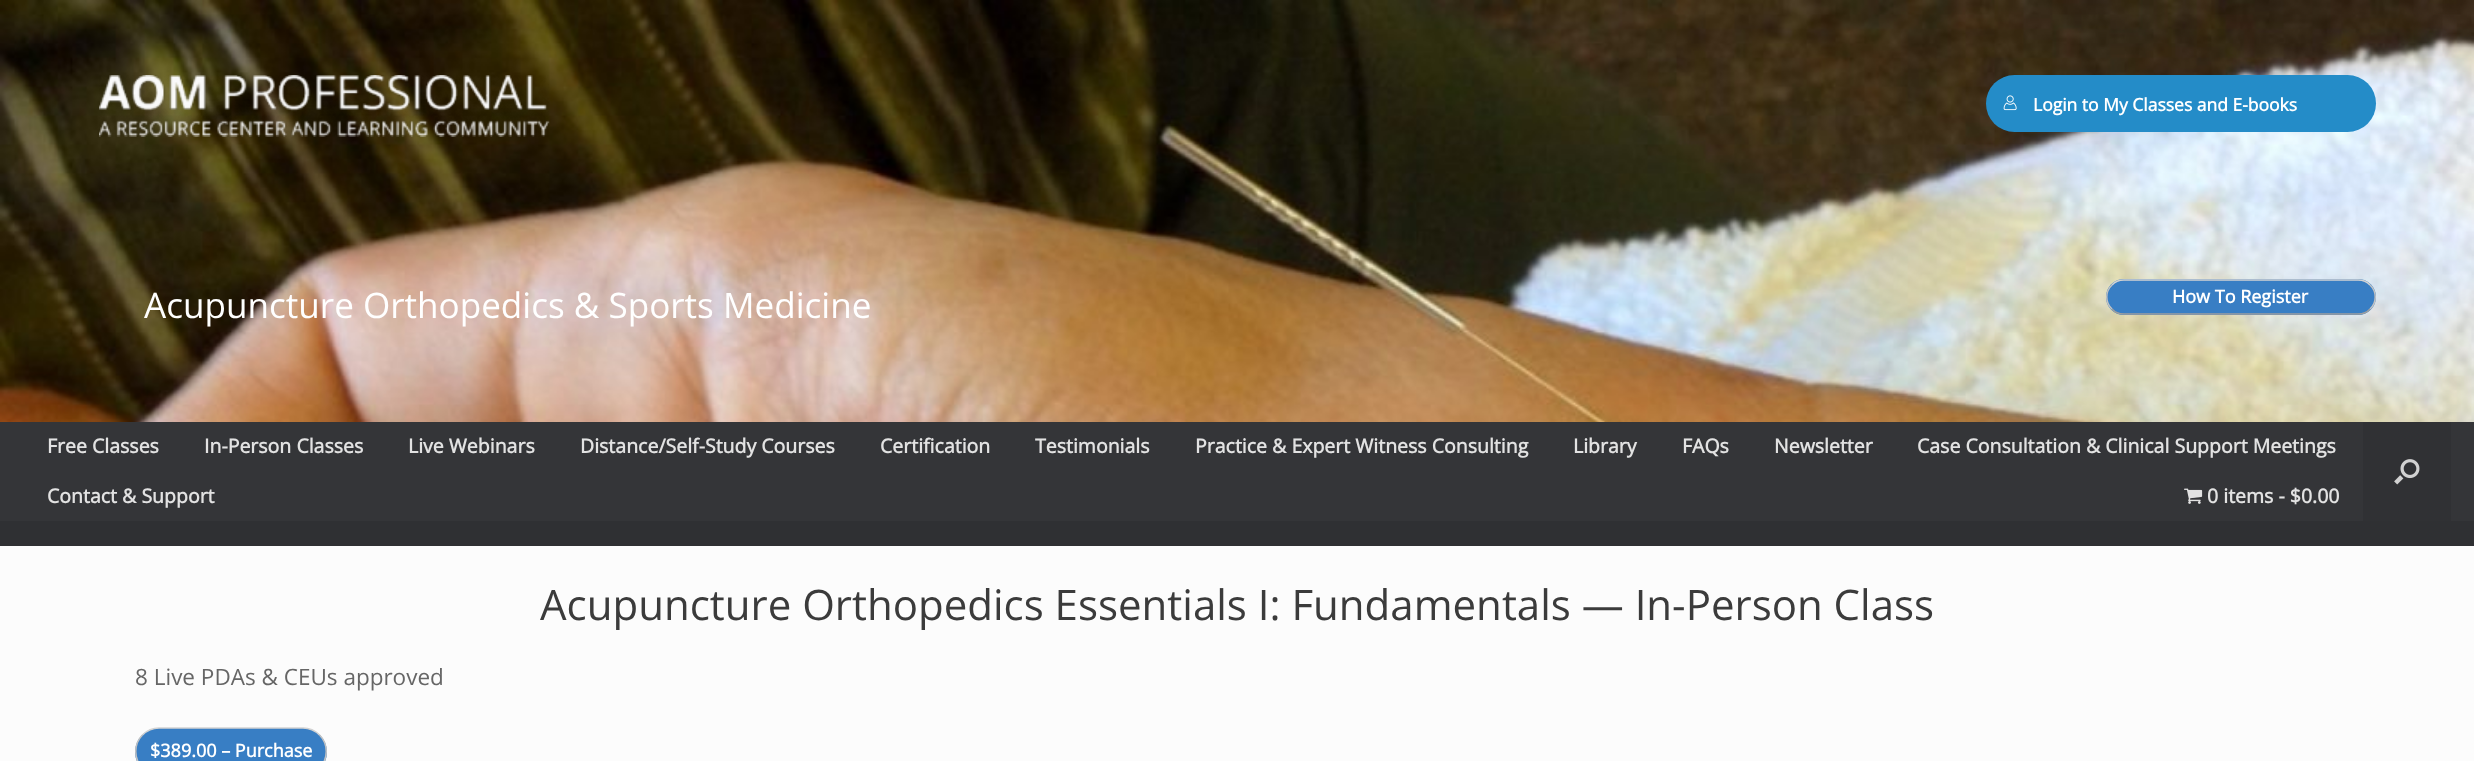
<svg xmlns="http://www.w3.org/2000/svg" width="2474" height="761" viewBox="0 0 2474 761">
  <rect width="100%" height="100%" fill="rgb(47,48,51)"/>
  <image x="0" y="0" width="2474" height="422" href="pic1.png"/>
  <image x="99" y="75" width="451" height="62" href="pic2.png"/>
  <rect x="1986" y="75" width="390" height="57" rx="28.5" fill="rgb(36,140,200)"/>
  <image x="2003" y="95" width="14" height="16" href="pic3.png"/>
  <text x="2033" y="111" font-family="Open Sans" font-size="17.5" font-weight="bold" fill="rgb(255,255,255)">Login to My Classes and E-books</text>
  <text x="144" y="318" font-family="Open Sans" font-size="35.1" fill="rgb(255,255,255)">Acupuncture Orthopedics &amp; Sports Medicine</text>
  <rect x="2106" y="279" width="270" height="36" rx="18" fill="rgb(56,126,196)"/>
  <path d="M2112 285C2115 281.5 2119.5 280 2124 280H2358C2362.5 280 2367 281.5 2370 285" fill="none" stroke="rgb(210,210,210)" stroke-width="1.5"/>
  <path d="M2370 285C2377 291.5 2377 302.5 2370 309" fill="none" stroke="rgb(195,195,195)" stroke-width="1.5"/>
  <path d="M2370 309C2367 312.5 2362.5 314 2358 314H2124C2119.5 314 2115 312.5 2112 309" fill="none" stroke="rgb(159,159,159)" stroke-width="1.5"/>
  <path d="M2112 309C2105 302.5 2105 291.5 2112 285" fill="none" stroke="rgb(195,195,195)" stroke-width="1.5"/>
  <text x="2172" y="303" font-family="Open Sans" font-size="18" font-weight="bold" fill="rgb(255,255,255)">How To Register</text>
  <rect x="0" y="422" width="2474" height="99" fill="rgb(52,53,56)"/>
  <g font-family="Open Sans" font-size="19.5" font-weight="bold" fill="rgb(226,226,226)">
    <text x="47" y="453">Free Classes</text>
    <text x="204" y="453">In-Person Classes</text>
    <text x="408" y="453">Live Webinars</text>
    <text x="580" y="453">Distance/Self-Study Courses</text>
    <text x="880" y="453">Certification</text>
    <text x="1035" y="453">Testimonials</text>
    <text x="1195" y="453">Practice &amp; Expert Witness Consulting</text>
    <text x="1573" y="453">Library</text>
    <text x="1682" y="453">FAQs</text>
    <text x="1774" y="453">Newsletter</text>
    <text x="1917" y="453">Case Consultation &amp; Clinical Support Meetings</text>
    <text x="47" y="503">Contact &amp; Support</text>
  </g>
  <image x="2184" y="488" width="19" height="16" href="pic4.png"/>
  <text x="2207" y="503" font-family="Open Sans" font-size="19.5" font-weight="bold" fill="rgb(226,226,226)">0 items - $0.00</text>
  <rect x="2363" y="422" width="88" height="99" fill="rgb(48,49,52)"/>
  <image x="2394" y="459" width="26" height="26" href="pic5.png"/>
  <rect x="0" y="546" width="2474" height="215" fill="rgb(252,252,252)"/>
  <text x="540" y="620" font-family="Open Sans" font-size="42" fill="rgb(59,59,59)">Acupuncture Orthopedics Essentials I: Fundamentals — In-Person Class</text>
  <text x="135" y="685" font-family="Open Sans" font-size="22.5" fill="rgb(102,102,102)">8 Live PDAs &amp; CEUs approved</text>
  <rect x="135" y="728" width="192" height="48" rx="24" fill="rgb(56,126,196)"/>
  <path d="M142.5 735C147 730.5 153 728 159 728H303C309 728 315 730.5 319.5 735" fill="none" stroke="rgb(210,210,210)" stroke-width="1.5"/>
  <path d="M319.5 735C328.5 744 328.5 759 319.5 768" fill="none" stroke="rgb(195,195,195)" stroke-width="1.5"/>
  <path d="M142.5 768C133.5 759 133.5 744 142.5 735" fill="none" stroke="rgb(195,195,195)" stroke-width="1.5"/>
  <text x="150" y="757" font-family="Open Sans" font-size="18" font-weight="bold" fill="rgb(255,255,255)">$389.00 – Purchase</text>
</svg>
